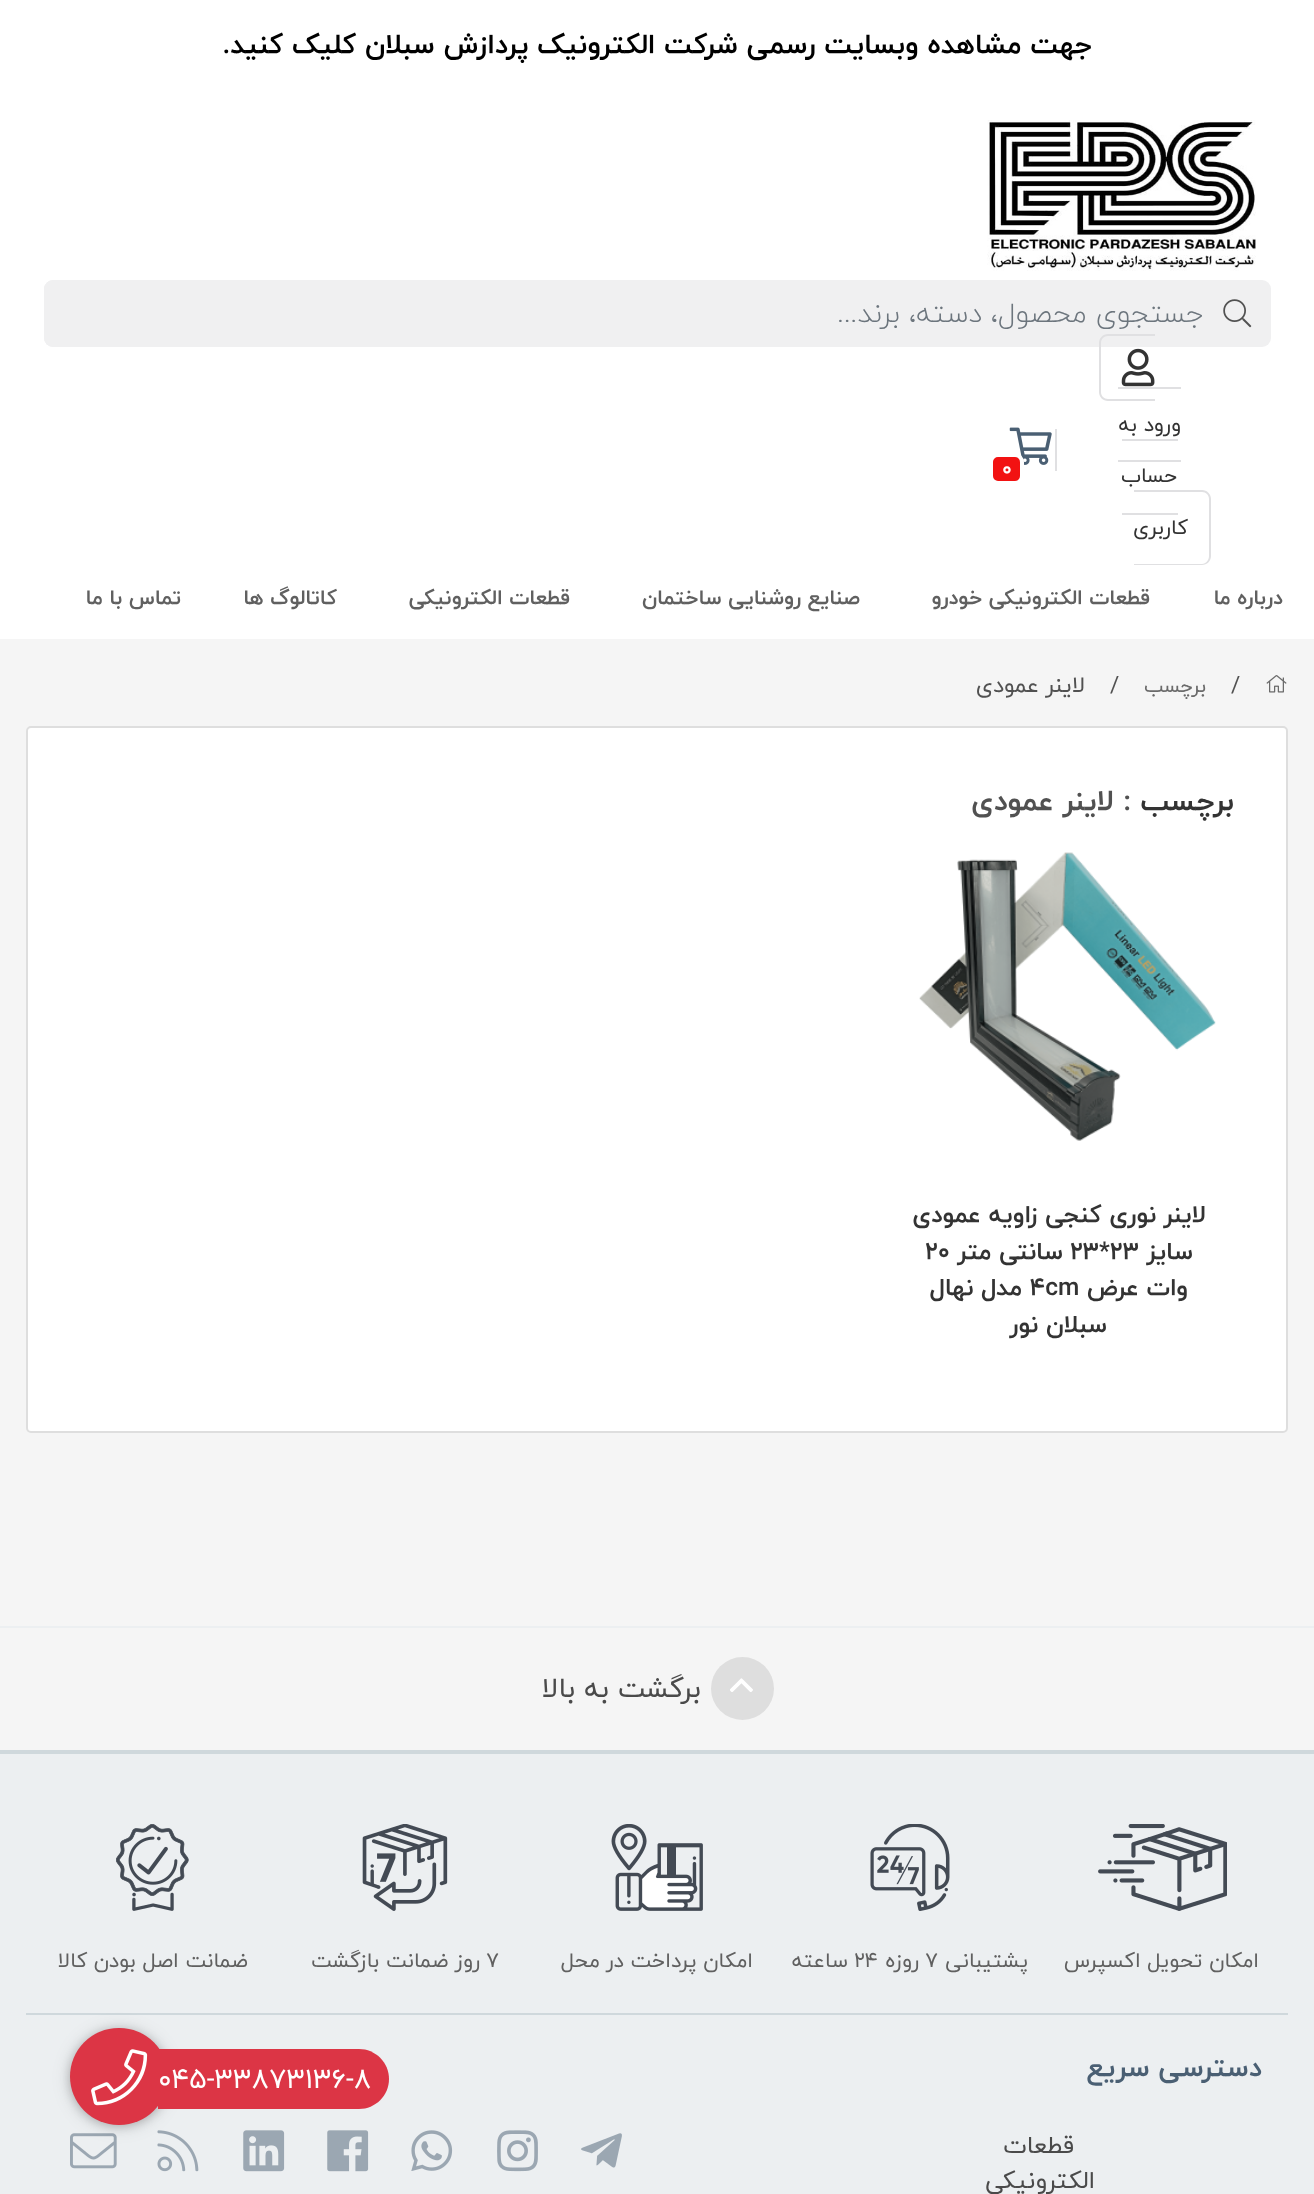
<svg xmlns="http://www.w3.org/2000/svg" width="1314" height="2194" viewBox="0 0 1314 2194">
  <rect width="100%" height="100%" fill="rgb(245,245,245)"/>
  <rect x="0" y="0" width="1314" height="639" fill="rgb(255,255,255)"/>
  <text x="1092" y="53" font-family="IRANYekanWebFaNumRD" font-size="28" font-weight="bold" direction="rtl" fill="rgb(0,0,0)">جهت مشاهده وبسایت رسمی شرکت الکترونیک پردازش سبلان کلیک کنید.</text>
  <image x="987" y="120" width="269" height="151" href="pic1.png"/>
  <rect x="44" y="280" width="1227" height="67" rx="9" fill="rgb(240,240,241)"/>
  <image x="1223" y="299" width="29" height="29" href="pic2.png"/>
  <rect x="44" y="280" width="1160" height="67" rx="9" fill="rgb(240,240,241)"/>
  <text x="1204" y="322" font-family="IRANYekanWebFaNumRD" font-size="28" font-weight="300" direction="rtl" fill="rgb(108,117,125)">جستجوی محصول، دسته، برند...</text>
  <path d="M1108 334H1155V401H1108C1103 401 1099 397 1099 392V343C1099 338 1103 334 1108 334ZM1108 336H1155V399H1108C1104 399 1101 396 1101 392V343C1101 339 1104 336 1108 336Z" fill="rgb(224,224,226)" fill-rule="evenodd"/>
  <rect x="1118" y="387" width="63" height="2" fill="rgb(224,224,226)"/>
  <rect x="1118" y="460" width="63" height="2" fill="rgb(224,224,226)"/>
  <rect x="1122" y="439" width="56" height="2" fill="rgb(224,224,226)"/>
  <rect x="1122" y="513" width="56" height="2" fill="rgb(224,224,226)"/>
  <path d="M1134 490H1202C1207 490 1211 494 1211 499V556C1211 561 1207 565 1202 565H1134ZM1134 492H1202C1206 492 1209 495 1209 499V556C1209 560 1206 564 1202 564H1134Z" fill="rgb(224,224,226)" fill-rule="evenodd"/>
  <image x="1121" y="348" width="34" height="39" href="pic3.png"/>
  <g font-family="IRANYekanWebFaNumRD" font-size="21" direction="rtl" fill="rgb(51,51,51)">
    <text x="1181" y="431">ورود به</text>
    <text x="1177" y="482">حساب</text>
    <text x="1188" y="534">کاربری</text>
  </g>
  <rect x="1055" y="429" width="2" height="42" fill="rgb(224,224,226)"/>
  <image x="1009" y="427" width="43" height="38" href="pic4.png"/>
  <rect x="991" y="455" width="31" height="28" rx="7" fill="rgb(242,18,18)" stroke="rgb(255,255,255)" stroke-width="4"/>
  <text x="1002" y="475" font-family="IRANYekanWebFaNumRD" font-size="20" font-weight="bold" fill="rgb(255,255,255)">0</text>
  <g font-family="IRANYekanWebFaNumRD" font-size="21" font-weight="bold" direction="rtl" fill="rgb(96,96,96)">
    <text x="1283" y="604">درباره ما</text>
    <text x="1150" y="604">قطعات الکترونیکی خودرو</text>
    <text x="860" y="604">صنایع روشنایی ساختمان</text>
    <text x="570" y="604">قطعات الکترونیکی</text>
    <text x="337" y="604">کاتالوگ ها</text>
    <text x="181" y="604">تماس با ما</text>
  </g>
  <image x="1266" y="675" width="21" height="18" href="pic5.png"/>
  <text x="1231" y="692" font-family="IRANYekanWebFaNumRD" font-size="22.5" fill="rgb(81,81,81)">/</text>
  <text x="1206" y="692" font-family="IRANYekanWebFaNumRD" font-size="20" direction="rtl" fill="rgb(106,106,106)">برچسب</text>
  <text x="1110" y="692" font-family="IRANYekanWebFaNumRD" font-size="22.5" fill="rgb(81,81,81)">/</text>
  <text x="1085" y="692" font-family="IRANYekanWebFaNumRD" font-size="22.5" direction="rtl" fill="rgb(81,81,81)">لاینر عمودی</text>
  <rect x="27" y="727" width="1260" height="705" rx="4" fill="rgb(255,255,255)" stroke="rgb(222,222,222)" stroke-width="2"/>
  <text x="1234" y="810" font-family="IRANYekanWebFaNumRD" font-size="29.5" font-weight="bold" direction="rtl" fill="rgb(51,51,51)">برچسب</text>
  <text x="1131" y="810" font-family="IRANYekanWebFaNumRD" font-size="29.5" font-weight="bold" direction="rtl" fill="rgb(81,81,81)">: لاینر عمودی</text>
  <image x="919" y="852" width="297" height="289" href="pic6.png"/>
  <g font-family="IRANYekanWebFaNumRD" font-size="24.5" font-weight="bold" direction="rtl" fill="rgb(51,51,51)">
    <text x="1206" y="1222">لاینر نوری کنجی زاویه عمودی</text>
    <text x="1193" y="1259">سایز</text>
  </g>
  <text x="1070" y="1259" font-family="IRANYekanWebFaNumRD" font-size="24.5" font-weight="bold" fill="rgb(51,51,51)">23*23</text>
  <text x="1063" y="1259" font-family="IRANYekanWebFaNumRD" font-size="24.5" font-weight="bold" direction="rtl" fill="rgb(51,51,51)">سانتی متر</text>
  <text x="925" y="1259" font-family="IRANYekanWebFaNumRD" font-size="24.5" font-weight="bold" fill="rgb(51,51,51)">20</text>
  <text x="1188" y="1295" font-family="IRANYekanWebFaNumRD" font-size="24.5" font-weight="bold" direction="rtl" fill="rgb(51,51,51)">وات عرض</text>
  <text x="1030" y="1295" font-family="IRANYekanWebFaNumRD" font-size="24.5" font-weight="bold" fill="rgb(51,51,51)">4cm</text>
  <g font-family="IRANYekanWebFaNumRD" font-size="24.5" font-weight="bold" direction="rtl" fill="rgb(51,51,51)">
    <text x="1022" y="1295">مدل نهال</text>
    <text x="1107" y="1332">سبلان نور</text>
  </g>
  <rect x="0" y="1626" width="1314" height="2" fill="rgb(236,239,241)"/>
  <circle cx="742.5" cy="1688.5" r="31.5" fill="rgb(222,222,222)"/>
  <image x="730" y="1678" width="23" height="14" href="pic7.png"/>
  <text x="701" y="1697" font-family="IRANYekanWebFaNumRD" font-size="28" direction="rtl" fill="rgb(74,74,74)">برگشت به بالا</text>
  <rect x="0" y="1750" width="1314" height="4" fill="rgb(207,216,220)"/>
  <rect x="0" y="1754" width="1314" height="440" fill="rgb(236,239,241)"/>
  <rect x="26" y="2013" width="1262" height="2" fill="rgb(207,216,220)"/>
  <image x="1098" y="1824" width="129" height="87" href="pic8.png"/>
  <text x="1259" y="1967" font-family="IRANYekanWebFaNumRD" font-size="21" direction="rtl" fill="rgb(96,96,96)">امکان تحویل اکسپرس</text>
  <image x="870" y="1824" width="80" height="87" href="pic9.png"/>
  <text x="1028" y="1967" font-family="IRANYekanWebFaNumRD" font-size="21" direction="rtl" fill="rgb(96,96,96)">پشتیبانی</text>
  <text x="925" y="1967" font-family="IRANYekanWebFaNumRD" font-size="21" fill="rgb(96,96,96)">۷</text>
  <text x="919" y="1967" font-family="IRANYekanWebFaNumRD" font-size="21" direction="rtl" fill="rgb(96,96,96)">روزه</text>
  <text x="854" y="1967" font-family="IRANYekanWebFaNumRD" font-size="21" fill="rgb(96,96,96)">۲۴</text>
  <text x="848" y="1967" font-family="IRANYekanWebFaNumRD" font-size="21" direction="rtl" fill="rgb(96,96,96)">ساعته</text>
  <image x="611" y="1824" width="92" height="87" href="pic10.png"/>
  <text x="753" y="1967" font-family="IRANYekanWebFaNumRD" font-size="21" direction="rtl" fill="rgb(96,96,96)">امکان پرداخت در محل</text>
  <image x="362" y="1824" width="86" height="87" href="pic11.png"/>
  <text x="486" y="1967" font-family="IRANYekanWebFaNumRD" font-size="21" fill="rgb(96,96,96)">۷</text>
  <text x="480" y="1967" font-family="IRANYekanWebFaNumRD" font-size="21" direction="rtl" fill="rgb(96,96,96)">روز ضمانت بازگشت</text>
  <image x="116" y="1824" width="73" height="87" href="pic12.png"/>
  <text x="248" y="1967" font-family="IRANYekanWebFaNumRD" font-size="21" direction="rtl" fill="rgb(96,96,96)">ضمانت اصل بودن کالا</text>
  <text x="1262" y="2076" font-family="IRANYekanWebFaNumRD" font-size="28" font-weight="bold" direction="rtl" fill="rgb(74,95,115)">دسترسی سریع</text>
  <g font-family="IRANYekanWebFaNumRD" font-size="24.5" direction="rtl" fill="rgb(74,74,74)">
    <text x="1074" y="2153">قطعات</text>
    <text x="1095" y="2188">الکترونیکی</text>
  </g>
  <image x="581" y="2133" width="41" height="35" href="pic13.png"/>
  <image x="497" y="2130" width="41" height="42" href="pic14.png"/>
  <image x="411" y="2130" width="42" height="41" href="pic15.png"/>
  <image x="327" y="2130" width="42" height="42" href="pic16.png"/>
  <image x="243" y="2130" width="42" height="42" href="pic17.png"/>
  <image x="157" y="2130" width="42" height="42" href="pic18.png"/>
  <image x="70" y="2133" width="47" height="36" href="pic19.png"/>
  <rect x="70" y="2030" width="98" height="96" rx="48" fill="rgba(0,0,0,0.15)" filter="blur(9px)"/>
  <rect x="70" y="2030" width="98" height="96" rx="48" fill="rgba(0,0,0,0.2)" filter="blur(5px)"/>
  <rect x="70" y="2028" width="98" height="97" rx="48.5" fill="rgb(220,53,69)"/>
  <path d="M158 2049H359C375.5 2049 389 2062.5 389 2079C389 2095.5 375.5 2109 359 2109H158Z" fill="rgb(220,53,69)"/>
  <text x="158" y="2088" font-family="IRANYekanWebFaNumRD" font-size="28" fill="rgb(255,255,255)">045-33873136-8</text>
  <image x="91" y="2049" width="57" height="57" href="pic20.png"/>
</svg>
